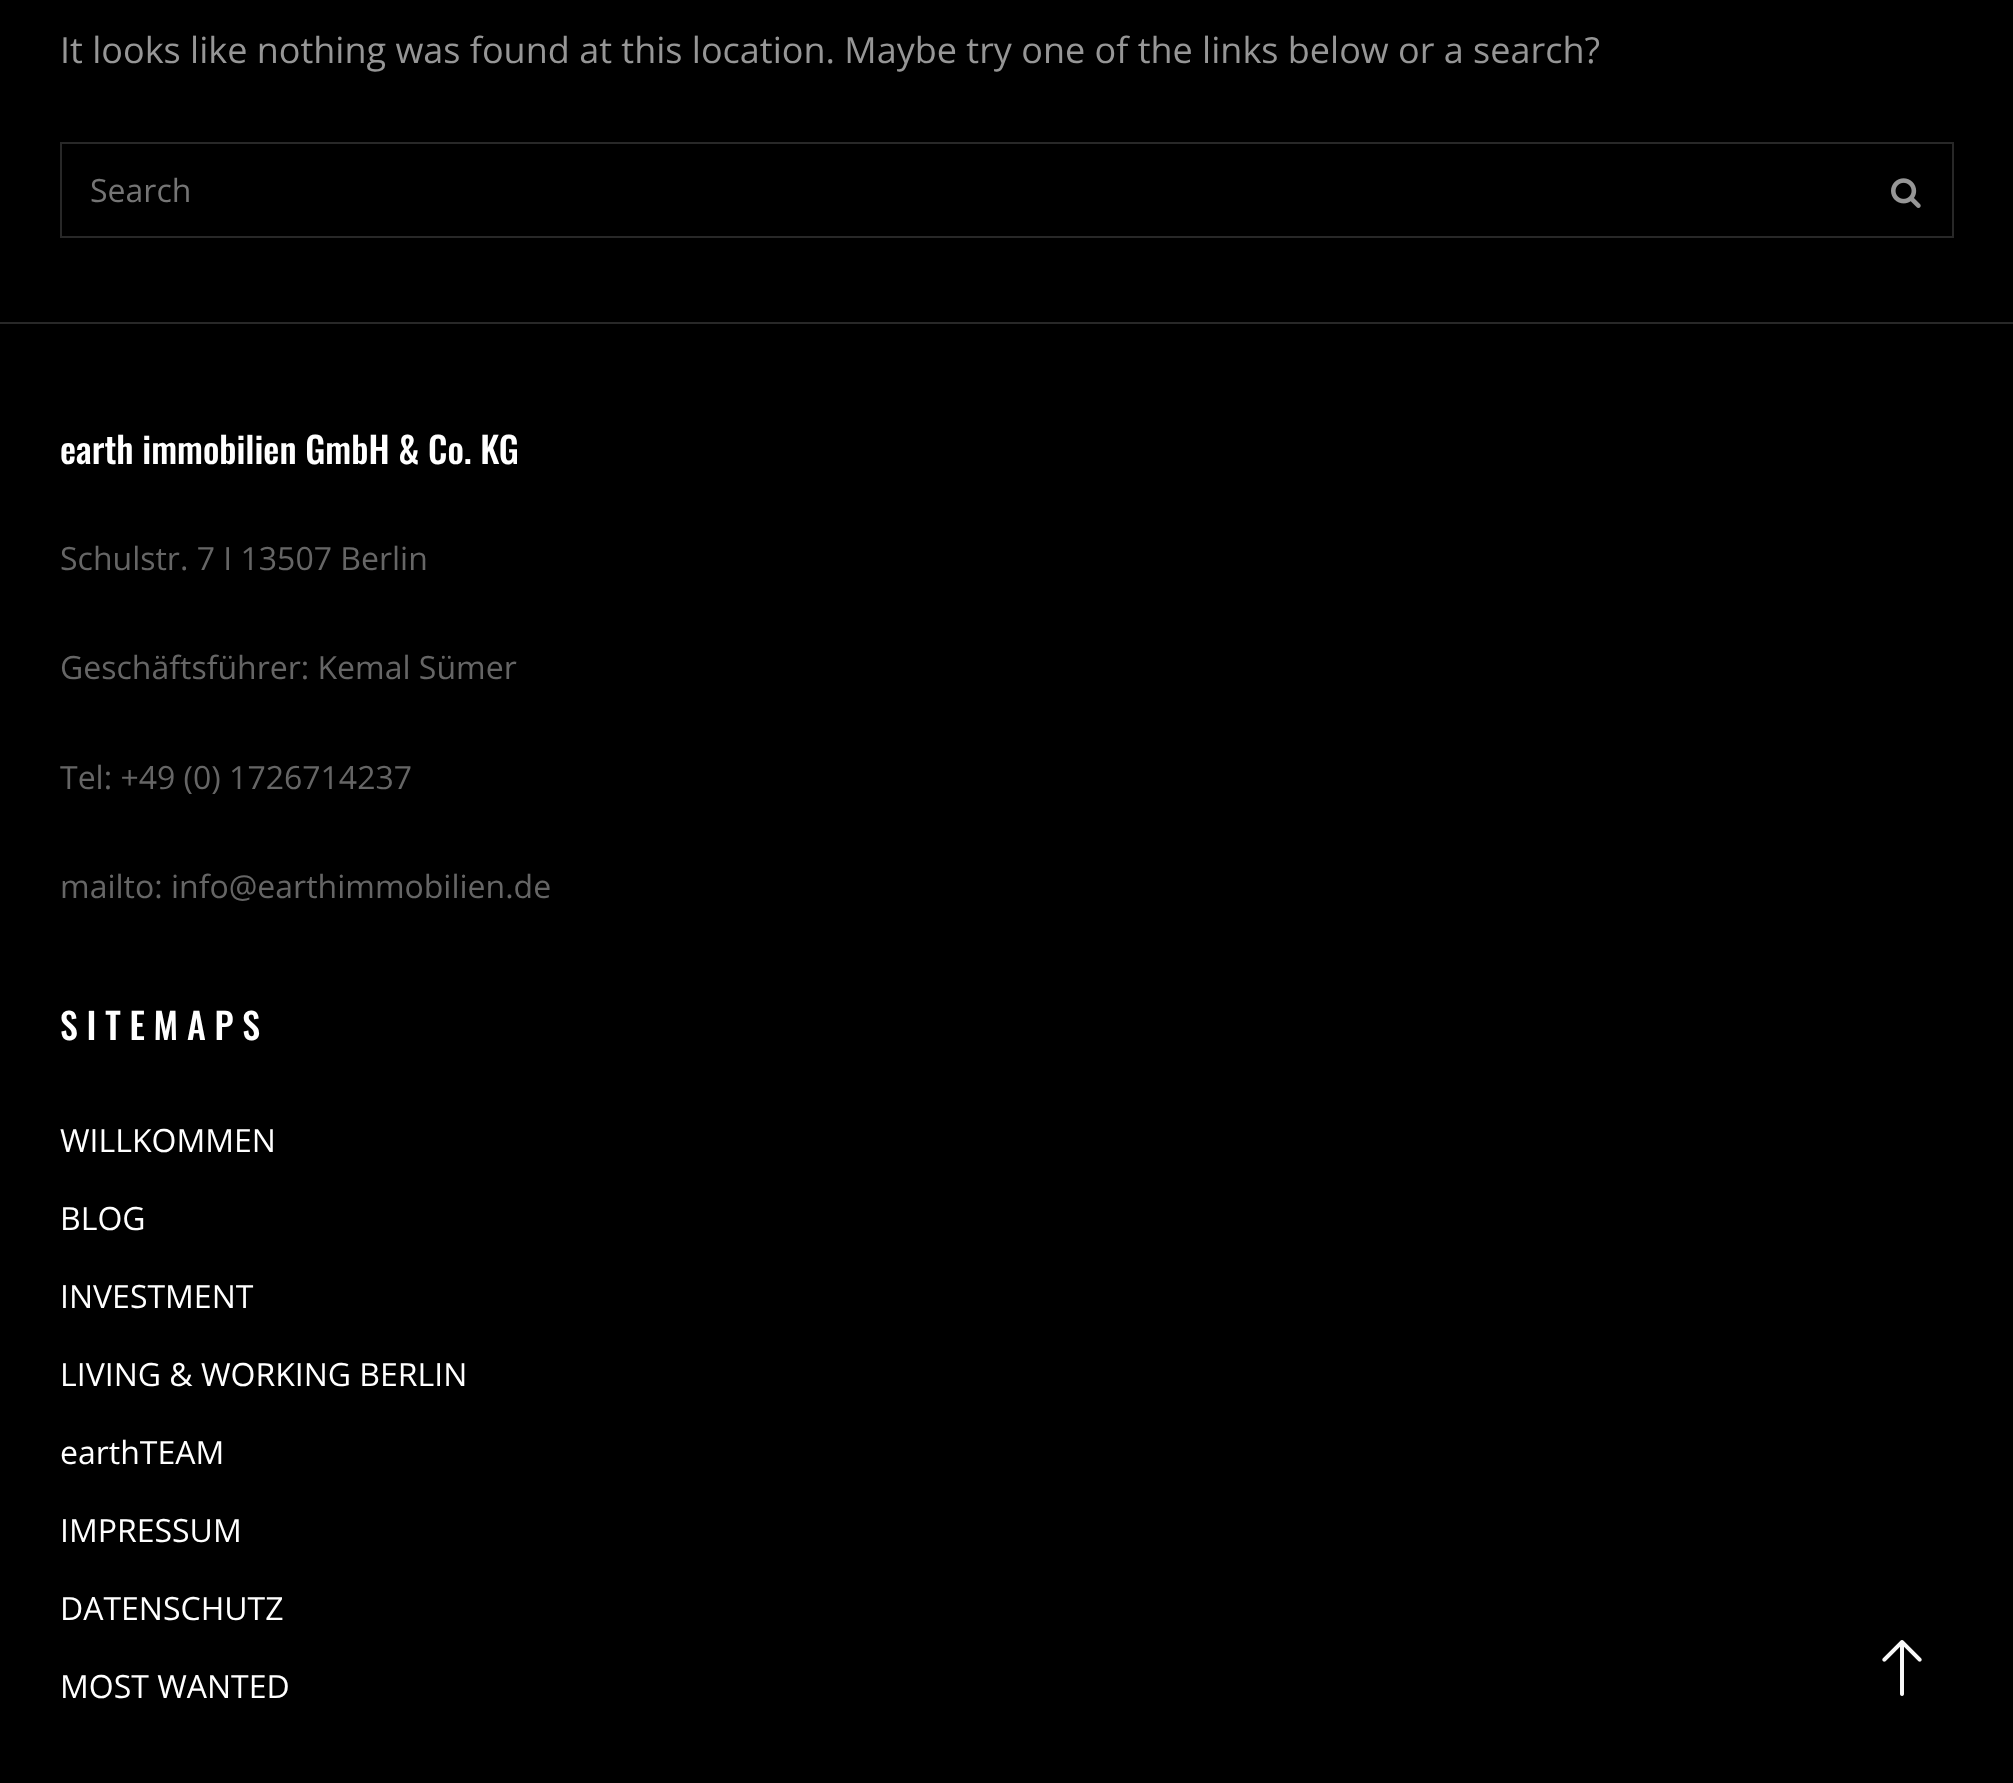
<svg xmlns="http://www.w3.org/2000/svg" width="2013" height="1783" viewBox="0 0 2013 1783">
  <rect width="100%" height="100%" fill="rgb(0,0,0)"/>
  <text x="60" y="63" font-family="Open Sans" font-size="36" fill="rgb(150,150,150)">It looks like nothing was found at this location. Maybe try one of the links below or a search?</text>
  <rect x="61" y="143" width="1892" height="94" fill="none" stroke="rgb(40,40,40)" stroke-width="2"/>
  <text x="90" y="202" font-family="Open Sans" font-size="32" fill="rgb(117,117,117)">Search</text>
  <image x="1891" y="178" width="30" height="30" href="pic1.png"/>
  <rect x="0" y="322" width="2013" height="2" fill="rgb(40,40,40)"/>
  <text x="60" y="464" font-family="Oswald" font-size="36" font-weight="500" fill="rgb(255,255,255)">earth immobilien GmbH &amp; Co. KG</text>
  <g font-family="Open Sans" font-size="32" fill="rgb(102,102,102)">
    <text x="60" y="570">Schulstr. 7 I 13507 Berlin</text>
    <text x="60" y="679">Geschäftsführer: Kemal Sümer</text>
    <text x="60" y="789">Tel: +49 (0) 1726714237</text>
    <text x="60" y="898">mailto: info@earthimmobilien.de</text>
  </g>
  <text x="60" y="1040" font-family="Oswald" font-size="36" font-weight="500" fill="rgb(255,255,255)">S I T E M A P S</text>
  <g font-family="Open Sans" font-size="32" fill="rgb(255,255,255)">
    <text x="60" y="1152">WILLKOMMEN</text>
    <text x="60" y="1230">BLOG</text>
    <text x="60" y="1308">INVESTMENT</text>
    <text x="60" y="1386">LIVING &amp; WORKING BERLIN</text>
    <text x="60" y="1464">earthTEAM</text>
    <text x="60" y="1542">IMPRESSUM</text>
    <text x="60" y="1620">DATENSCHUTZ</text>
    <text x="60" y="1698">MOST WANTED</text>
  </g>
  <image x="1882" y="1640" width="40" height="56" href="pic2.png"/>
</svg>
